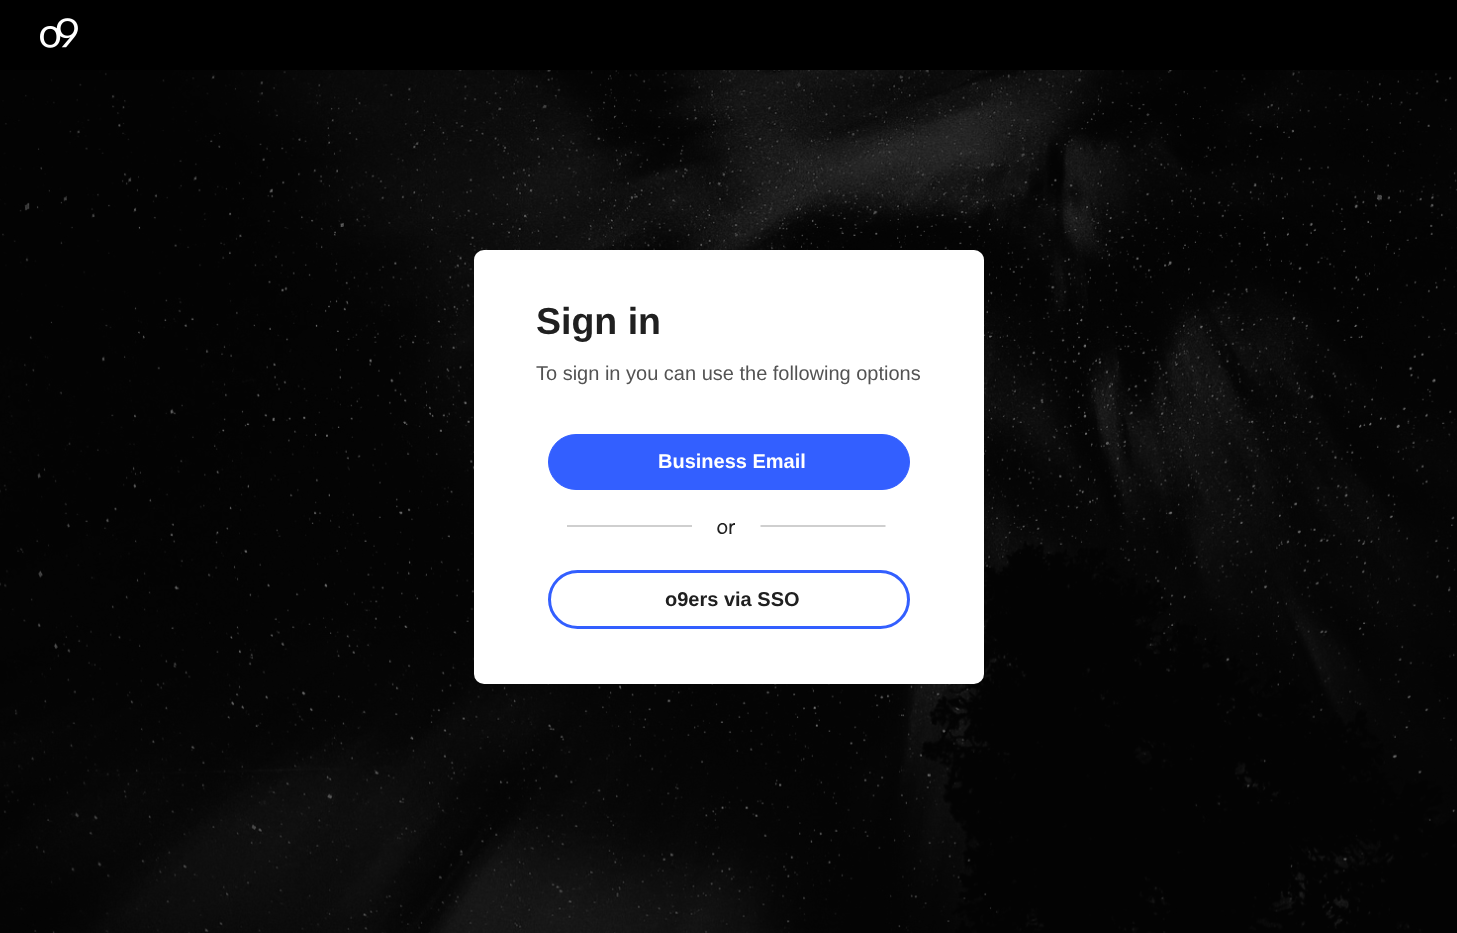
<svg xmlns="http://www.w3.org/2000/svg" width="1457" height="933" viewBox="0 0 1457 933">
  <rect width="100%" height="100%" fill="rgb(255,255,255)"/>
  <rect x="0" y="0" width="1457" height="70" fill="rgb(0,0,0)"/>
  <image x="40" y="18" width="38" height="30" href="pic1.png"/>
  <image x="0" y="70" width="1457" height="863" href="pic2.png"/>
  <rect x="474" y="250" width="510" height="434" rx="10" fill="rgb(255,255,255)"/>
  <text x="536" y="334" font-family="Liberation Sans" font-size="37.5" font-weight="bold" fill="rgb(32,32,32)">Sign in</text>
  <text x="536" y="380" font-family="Liberation Sans" font-size="20" fill="rgb(83,83,83)">To sign in you can use the following options</text>
  <rect x="548.5" y="434.5" width="361" height="55" rx="27.5" fill="rgb(51,95,255)" stroke="rgb(51,95,255)"/>
  <text x="658" y="468" font-family="Liberation Sans" font-size="20" font-weight="bold" fill="rgb(255,255,255)">Business Email</text>
  <path d="M567 526H692" fill="none" stroke="rgb(160,160,160)" stroke-width="1.2"/>
  <path d="M722.5 532.5C726.5 532.5 726.5 524.5 722.5 524.5C718 524.5 718 532.5 722.5 532.5ZM722.5 523C729 523 729 534 722 534C715.5 534 716 523 722.5 523ZM729.5 523.5H731.5V525C732 523.5 733.5 523 735 523V525C730 524 731.5 531.5 731.5 534H729.5Z" fill="rgb(32,32,32)"/>
  <path d="M760.5 526H885.5" fill="none" stroke="rgb(160,160,160)" stroke-width="1.2"/>
  <rect x="549.5" y="571.5" width="359" height="56" rx="28" fill="none" stroke="rgb(51,95,255)" stroke-width="3"/>
  <text x="665" y="606" font-family="Liberation Sans" font-size="20" font-weight="bold" fill="rgb(32,32,32)">o9ers via SSO</text>
</svg>
